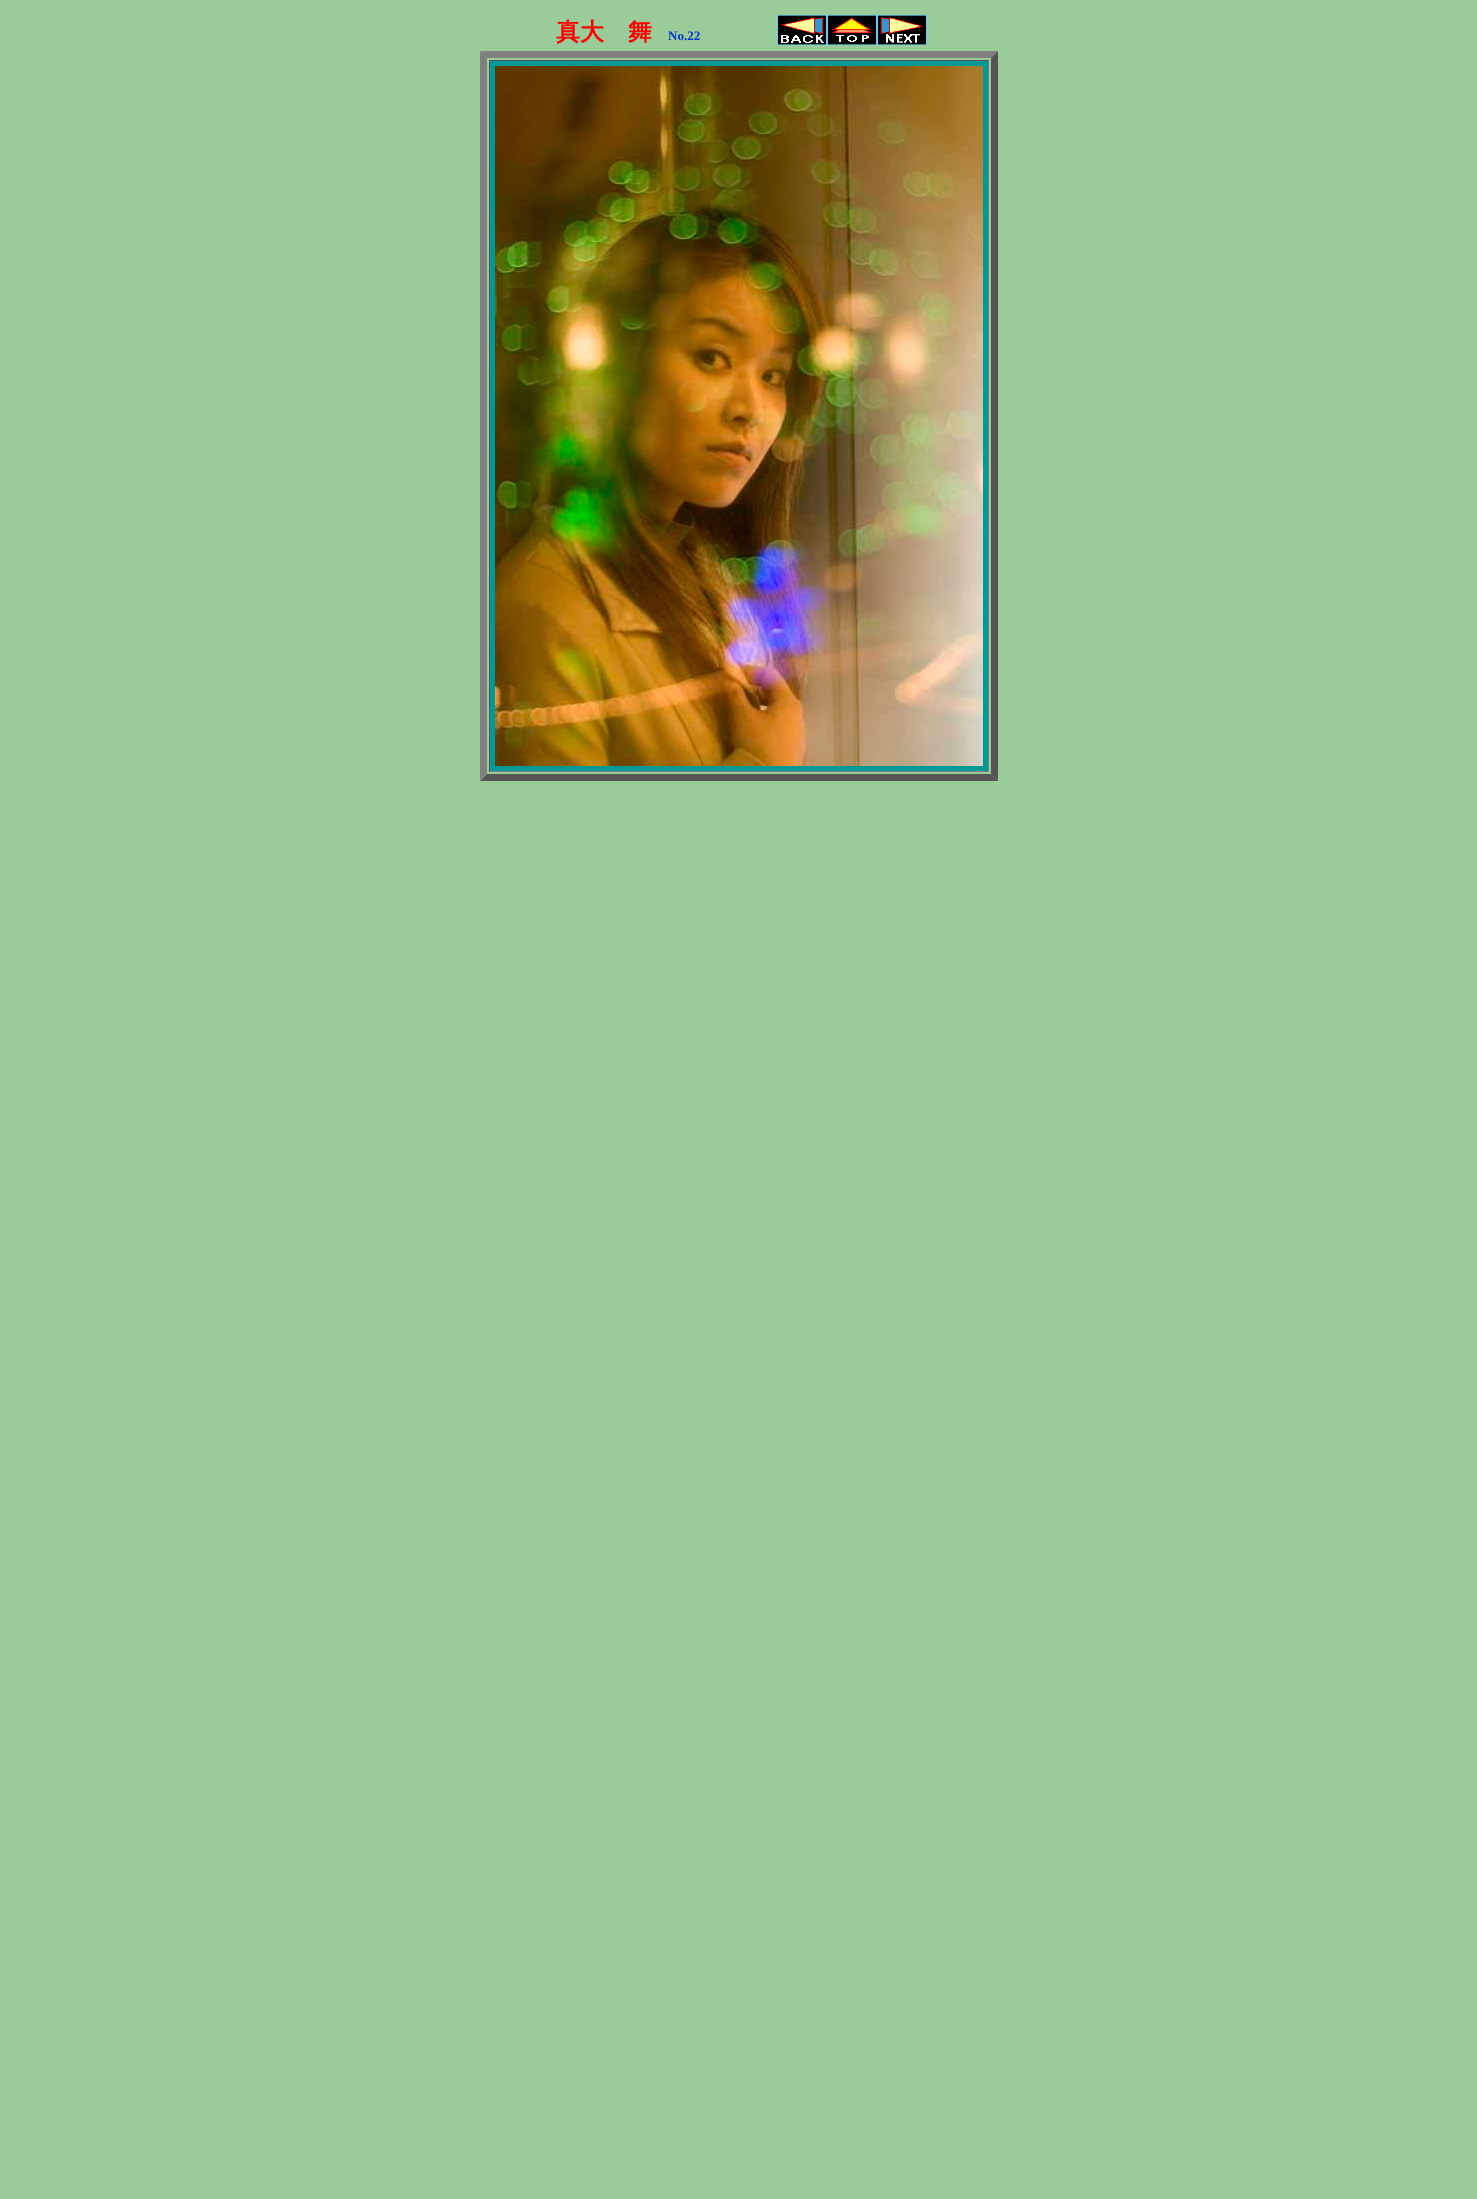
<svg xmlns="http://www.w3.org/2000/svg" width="1477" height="2199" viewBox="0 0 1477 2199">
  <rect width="100%" height="100%" fill="rgb(153,204,153)"/>
  <text x="556" y="40" font-family="WenQuanYi Zen Hei" font-size="24" font-weight="bold" fill="rgb(255,0,0)">真大　舞</text>
  <text x="668" y="40" font-family="Liberation Serif" font-size="13" font-weight="bold" fill="rgb(0,51,204)">No.22</text>
  <image x="777" y="15" width="50" height="30" href="pic1.png"/>
  <image x="827" y="15" width="50" height="30" href="pic2.png"/>
  <image x="877" y="15" width="50" height="30" href="pic3.png"/>
  <path d="M480 51H998L991 58H487Z" fill="rgb(128,128,128)"/>
  <path d="M998 51V781L991 774V58Z" fill="rgb(85,85,85)"/>
  <path d="M998 781H480L487 774H991Z" fill="rgb(85,85,85)"/>
  <path d="M480 781V51L487 58V774Z" fill="rgb(128,128,128)"/>
  <rect x="490" y="61" width="498" height="710" fill="rgb(0,153,153)"/>
  <rect x="489" y="60" width="500" height="1" fill="rgb(85,85,85)"/>
  <rect x="988" y="60" width="1" height="712" fill="rgb(128,128,128)"/>
  <rect x="489" y="771" width="500" height="1" fill="rgb(128,128,128)"/>
  <rect x="489" y="60" width="1" height="712" fill="rgb(85,85,85)"/>
  <image x="495" y="66" width="488" height="700" href="pic4.png"/>
</svg>
